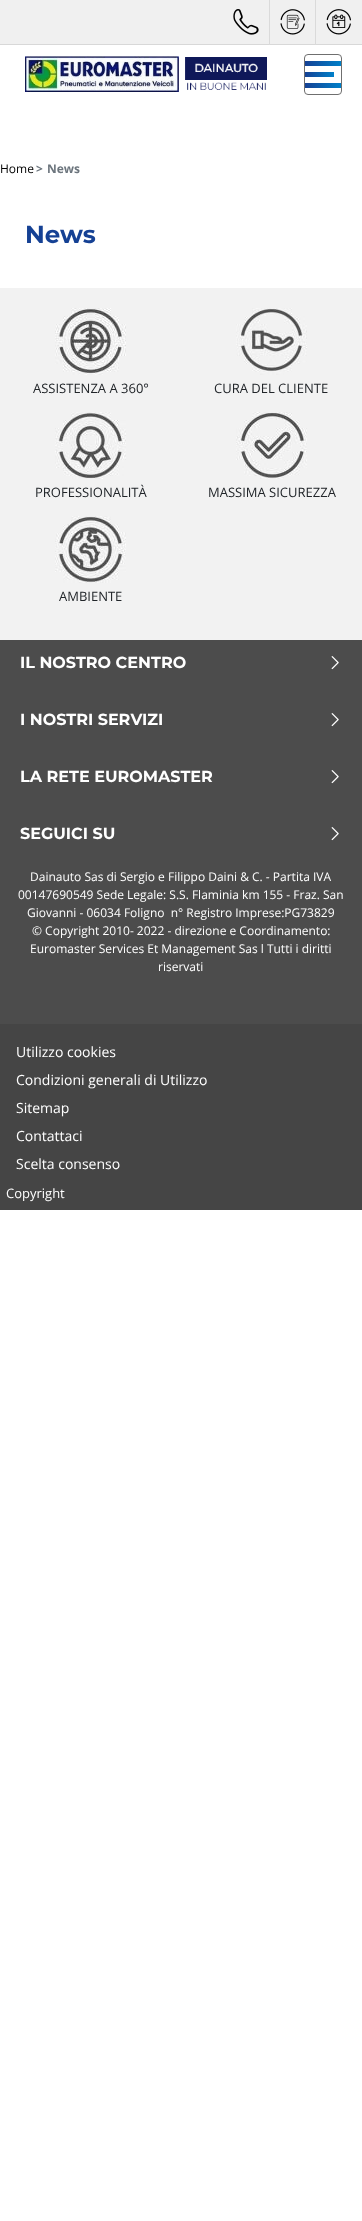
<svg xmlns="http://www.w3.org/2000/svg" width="362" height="2221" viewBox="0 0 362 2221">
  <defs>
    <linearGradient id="g1" gradientUnits="userSpaceOnUse" x1="305" y1="64" x2="341" y2="64"><stop offset="0" stop-color="rgb(21,65,148)"/><stop offset="1" stop-color="rgb(0,128,201)"/></linearGradient>
    <linearGradient id="g2" gradientUnits="userSpaceOnUse" x1="305" y1="75" x2="334" y2="75"><stop offset="0" stop-color="rgb(21,65,148)"/><stop offset="1" stop-color="rgb(0,128,201)"/></linearGradient>
    <linearGradient id="g3" gradientUnits="userSpaceOnUse" x1="305" y1="86" x2="341" y2="86"><stop offset="0" stop-color="rgb(21,65,148)"/><stop offset="1" stop-color="rgb(0,128,201)"/></linearGradient>
  </defs>
  <rect width="100%" height="100%" fill="rgb(255,255,255)"/>
  <rect x="0" y="0" width="362" height="44" fill="rgb(240,240,240)"/>
  <rect x="0" y="44" width="362" height="1" fill="rgb(216,216,216)"/>
  <image x="233" y="9" width="26" height="26" href="pic1.png"/>
  <rect x="269" y="0" width="1" height="45" fill="rgb(218,218,218)"/>
  <image x="280" y="9" width="25" height="26" href="pic2.png"/>
  <rect x="315" y="0" width="1" height="45" fill="rgb(218,218,218)"/>
  <image x="326" y="9" width="25" height="26" href="pic3.png"/>
  <image x="25" y="56" width="242" height="36" href="pic4.png"/>
  <rect x="304.5" y="54.5" width="37" height="40" rx="3.5" fill="none" stroke="rgb(111,111,111)"/>
  <rect x="305" y="61" width="36" height="5" fill="url(#g1)"/>
  <rect x="305" y="72" width="29" height="5" fill="url(#g2)"/>
  <rect x="305" y="83" width="36" height="5" fill="url(#g3)"/>
  <text x="0" y="173" font-family="Open Sans" font-size="12" fill="rgb(0,0,0)">Home</text>
  <g font-family="Open Sans" font-size="12" font-weight="bold" fill="rgb(108,117,125)">
    <text x="36" y="173">&gt;</text>
    <text x="47" y="173">News</text>
  </g>
  <text x="25" y="243" font-family="Montserrat" font-size="24.5" font-weight="bold" fill="rgb(21,65,148)">News</text>
  <rect x="0" y="640" width="362" height="384" fill="rgb(76,76,76)"/>
  <rect x="0" y="288" width="362" height="352" fill="rgb(242,242,242)"/>
  <image x="55" y="308" width="71" height="67" href="pic5.png"/>
  <text x="33" y="393" font-family="Open Sans" font-size="13" fill="rgb(33,37,41)">ASSISTENZA A 360°</text>
  <image x="236" y="308" width="71" height="67" href="pic6.png"/>
  <text x="214" y="393" font-family="Open Sans" font-size="13" fill="rgb(33,37,41)">CURA DEL CLIENTE</text>
  <image x="55" y="412" width="71" height="67" href="pic7.png"/>
  <text x="35" y="497" font-family="Open Sans" font-size="13" fill="rgb(33,37,41)">PROFESSIONALITÀ</text>
  <image x="236" y="412" width="71" height="67" href="pic8.png"/>
  <text x="208" y="497" font-family="Open Sans" font-size="13" fill="rgb(33,37,41)">MASSIMA SICUREZZA</text>
  <image x="55" y="516" width="71" height="67" href="pic9.png"/>
  <text x="59" y="601" font-family="Open Sans" font-size="13" fill="rgb(33,37,41)">AMBIENTE</text>
  <text x="20" y="668" font-family="Montserrat" font-size="16" font-weight="bold" fill="rgb(255,255,255)">IL NOSTRO CENTRO</text>
  <image x="331" y="656" width="8" height="14" href="pic10.png"/>
  <text x="20" y="725" font-family="Montserrat" font-size="16" font-weight="bold" fill="rgb(255,255,255)">I NOSTRI SERVIZI</text>
  <image x="331" y="713" width="8" height="14" href="pic10.png"/>
  <text x="20" y="782" font-family="Montserrat" font-size="16" font-weight="bold" fill="rgb(255,255,255)">LA RETE EUROMASTER</text>
  <image x="331" y="770" width="8" height="14" href="pic10.png"/>
  <text x="20" y="839" font-family="Montserrat" font-size="16" font-weight="bold" fill="rgb(255,255,255)">SEGUICI SU</text>
  <image x="331" y="827" width="8" height="14" href="pic10.png"/>
  <g font-family="Open Sans" font-size="12" fill="rgb(255,255,255)">
    <text x="30" y="881">Dainauto Sas di Sergio e Filippo Daini &amp; C. - Partita IVA</text>
    <text x="18" y="899">00147690549 Sede Legale: S.S. Flaminia km 155 - Fraz. San</text>
    <text x="27" y="917" xml:space="preserve">Giovanni - 06034 Foligno  n° Registro Imprese:PG73829</text>
    <text x="32" y="935">© Copyright 2010- 2022 - direzione e Coordinamento:</text>
    <text x="30" y="953">Euromaster Services Et Management Sas l Tutti i diritti</text>
    <text x="158" y="971">riservati</text>
  </g>
  <rect x="0" y="1024" width="362" height="186" fill="rgb(69,69,69)"/>
  <g font-family="Open Sans" font-size="14" fill="rgb(255,255,255)">
    <text x="16" y="1057">Utilizzo cookies</text>
    <text x="16" y="1085">Condizioni generali di Utilizzo</text>
    <text x="16" y="1113">Sitemap</text>
    <text x="16" y="1141">Contattaci</text>
    <text x="16" y="1169">Scelta consenso</text>
  </g>
  <text x="6" y="1198" font-family="Open Sans" font-size="13" fill="rgb(255,255,255)">Copyright</text>
</svg>
